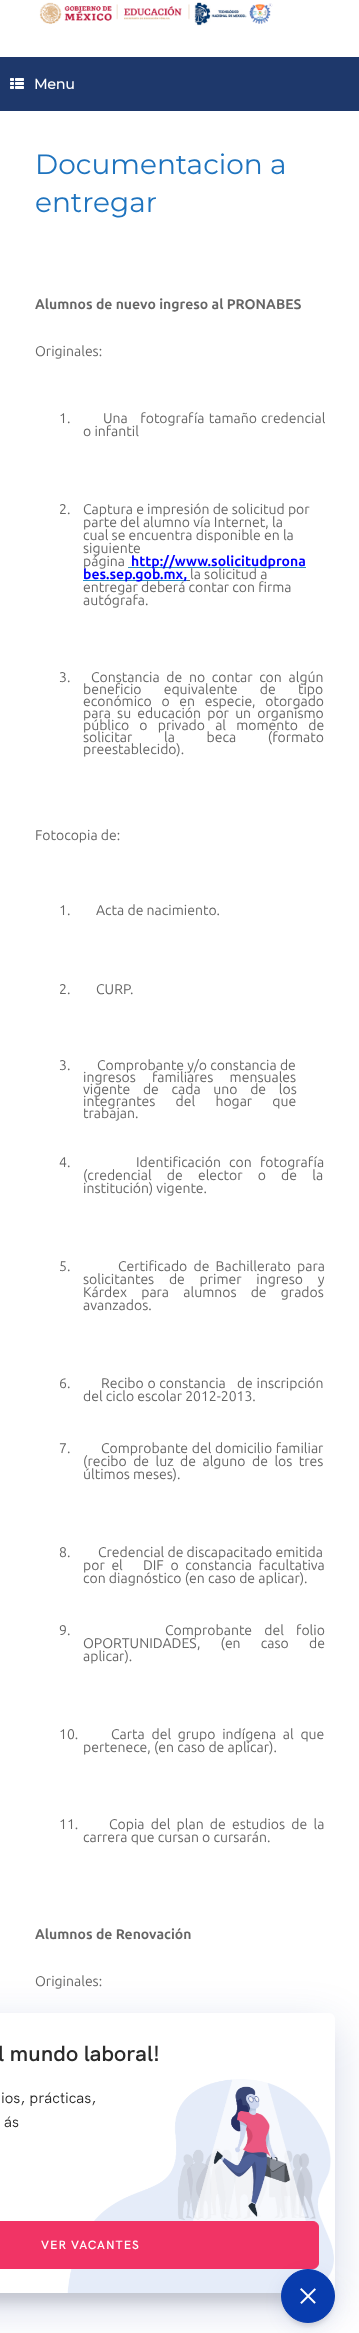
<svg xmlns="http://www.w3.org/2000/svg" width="359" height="2333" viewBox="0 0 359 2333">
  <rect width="100%" height="100%" fill="rgb(255,255,255)"/>
  <image x="39" y="2" width="234" height="24" href="pic1.png"/>
  <rect x="0" y="57" width="359" height="54" fill="rgb(30,56,107)"/>
  <image x="10" y="78" width="14" height="11" href="pic2.png"/>
  <text x="34" y="89" font-family="Montserrat" font-size="14" font-weight="bold" fill="rgb(255,255,255)">Menu</text>
  <g font-family="Montserrat" font-size="28" font-weight="100" fill="rgb(30,115,190)">
    <text>
      <tspan x="35" y="174">Documentacion a</tspan>
      <tspan x="35" y="212">entregar</tspan>
    </text>
  </g>
  <text x="35" y="309" font-family="Ubuntu" font-size="14" font-weight="bold" fill="rgb(102,102,102)">Alumnos de nuevo ingreso al PRONABES</text>
  <g font-family="Ubuntu" font-size="14" fill="rgb(102,102,102)">
    <text x="35" y="356">Originales:</text>
    <text x="59" y="423">1.</text>
    <text x="103" y="423" word-spacing="1" xml:space="preserve">Una   fotografía tamaño credencial</text>
    <text x="83" y="436">o infantil</text>
    <text x="59" y="514">2.</text>
    <text>
      <tspan x="83" y="514">Captura e impresión de solicitud por</tspan>
      <tspan x="83" y="527">parte del alumno vía Internet, la</tspan>
      <tspan x="83" y="540">cual se encuentra disponible en la</tspan>
      <tspan x="83" y="553">siguiente</tspan>
      <tspan x="83" y="566">página</tspan>
    </text>
  </g>
  <rect x="128" y="567" width="178" height="1" fill="rgb(36,140,200)"/>
  <text x="131" y="566" font-family="Ubuntu" font-size="14" font-weight="bold" fill="rgb(0,0,255)">http://www.solicitudprona</text>
  <rect x="83" y="580" width="104" height="1" fill="rgb(36,140,200)"/>
  <text x="83" y="579" font-family="Ubuntu" font-size="14" font-weight="bold" fill="rgb(0,0,255)">bes.sep.gob.mx,</text>
  <rect x="187" y="580" width="3" height="1" fill="rgb(102,102,102)"/>
  <g font-family="Ubuntu" font-size="14" fill="rgb(102,102,102)">
    <text x="190" y="579">la solicitud a</text>
    <text>
      <tspan x="83" y="592">entregar deberá contar con firma</tspan>
      <tspan x="83" y="605">autógrafa.</tspan>
    </text>
    <text x="59" y="682">3.</text>
    <text x="91" y="682" word-spacing="3.5">Constancia de no contar con algún</text>
    <text>
      <tspan x="83" y="694" word-spacing="19">beneficio equivalente de tipo</tspan>
      <tspan x="83" y="706" word-spacing="6.5">económico o en especie, otorgado</tspan>
      <tspan x="83" y="718" word-spacing="3">para su educación por un organismo</tspan>
      <tspan x="83" y="730" word-spacing="7">público o privado al momento de</tspan>
      <tspan x="83" y="742" word-spacing="28.5">solicitar la beca (formato</tspan>
      <tspan x="83" y="754">preestablecido).</tspan>
    </text>
    <text x="35" y="840">Fotocopia de:</text>
    <text x="59" y="915">1.</text>
    <text x="96" y="915">Acta de nacimiento.</text>
    <text x="59" y="994">2.</text>
    <text x="96" y="994">CURP.</text>
    <text x="59" y="1070">3.</text>
    <text x="97" y="1070">Comprobante y/o constancia de</text>
    <text>
      <tspan x="83" y="1082" word-spacing="13">ingresos familiares mensuales</tspan>
      <tspan x="83" y="1094" word-spacing="9.5">vigente de cada uno de los</tspan>
      <tspan x="83" y="1106" word-spacing="17">integrantes del hogar que</tspan>
      <tspan x="83" y="1118">trabajan.</tspan>
    </text>
    <text x="59" y="1167">4.</text>
    <text x="136" y="1167" word-spacing="5">Identificación con fotografía</text>
    <text>
      <tspan x="83" y="1180" word-spacing="12">(credencial de elector o de la</tspan>
      <tspan x="83" y="1193">institución) vigente.</tspan>
    </text>
    <text x="59" y="1271">5.</text>
    <text x="118" y="1271" word-spacing="3">Certificado de Bachillerato para</text>
    <text>
      <tspan x="83" y="1284" word-spacing="11.5">solicitantes de primer ingreso y</tspan>
      <tspan x="83" y="1297" word-spacing="11">Kárdex para alumnos de grados</tspan>
      <tspan x="83" y="1310">avanzados.</tspan>
    </text>
    <text x="59" y="1388">6.</text>
    <text x="101" y="1388" word-spacing="0.5" xml:space="preserve">Recibo o constancia   de inscripción</text>
    <text x="83" y="1401">del ciclo escolar 2012-2013.</text>
    <text x="59" y="1453">7.</text>
    <text x="101" y="1453" word-spacing="0.5">Comprobante del domicilio familiar</text>
    <text>
      <tspan x="83" y="1466" word-spacing="3.25">(recibo de luz de alguno de los tres</tspan>
      <tspan x="83" y="1479">últimos meses).</tspan>
    </text>
    <text x="59" y="1557">8.</text>
    <text x="98" y="1557">Credencial de discapacitado emitida</text>
    <text xml:space="preserve"><tspan x="83" y="1570" word-spacing="3.5">por el   DIF o constancia facultativa</tspan><tspan x="83" y="1583">con diagnóstico (en caso de aplicar).</tspan></text>
    <text x="59" y="1635">9.</text>
    <text x="165" y="1635" word-spacing="9">Comprobante del folio</text>
    <text>
      <tspan x="83" y="1648" word-spacing="17">OPORTUNIDADES, (en caso de</tspan>
      <tspan x="83" y="1661">aplicar).</tspan>
    </text>
    <text x="59" y="1739">10.</text>
    <text x="111" y="1739" word-spacing="3.5">Carta del grupo indígena al que</text>
    <text x="83" y="1752">pertenece, (en caso de aplicar).</text>
    <text x="59" y="1829">11.</text>
    <text x="109" y="1829" word-spacing="3">Copia del plan de estudios de la</text>
    <text x="83" y="1842">carrera que cursan o cursarán.</text>
  </g>
  <text x="35" y="1939" font-family="Ubuntu" font-size="14" font-weight="bold" fill="rgb(102,102,102)">Alumnos de Renovación</text>
  <text x="35" y="1986" font-family="Ubuntu" font-size="14" fill="rgb(102,102,102)">Originales:</text>
  <rect x="-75" y="2027" width="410" height="280" rx="6" fill="rgba(0,29,124,0.16)" filter="blur(23px)"/>
  <rect x="-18" y="2037" width="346" height="266" fill="rgba(0,0,0,0.12)" filter="blur(6px)"/>
  <rect x="-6" y="2013" width="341" height="280" rx="6" fill="rgb(255,255,255)"/>
  <text x="-2" y="2061" font-family="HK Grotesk" font-size="22" font-weight="600" fill="rgb(43,43,43)">l mundo laboral!</text>
  <g font-family="HK Grotesk" font-size="15" fill="rgb(34,34,34)">
    <text x="1" y="2103">ios, prácticas,</text>
    <text x="4" y="2127">ás</text>
  </g>
  <image x="67" y="2079" width="267" height="214" href="pic3.png"/>
  <rect x="-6.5" y="2221.5" width="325" height="47" rx="5.5" fill="rgb(241,52,101)" stroke="rgb(241,52,101)"/>
  <text x="41" y="2249" font-family="HK Grotesk" font-size="12" font-weight="600" letter-spacing="1" fill="rgb(255,255,255)">VER VACANTES</text>
  <rect x="284" y="2278" width="48" height="48" rx="24" fill="rgba(0,0,0,0.12)" filter="blur(2.5px)"/>
  <rect x="281" y="2275" width="54" height="54" rx="27" fill="rgba(0,29,124,0.08)" filter="blur(9px)"/>
  <circle cx="308" cy="2296" r="26.5" fill="rgb(8,60,174)" stroke="rgb(8,60,174)"/>
  <image x="300" y="2288" width="16" height="16" href="pic4.png"/>
</svg>
